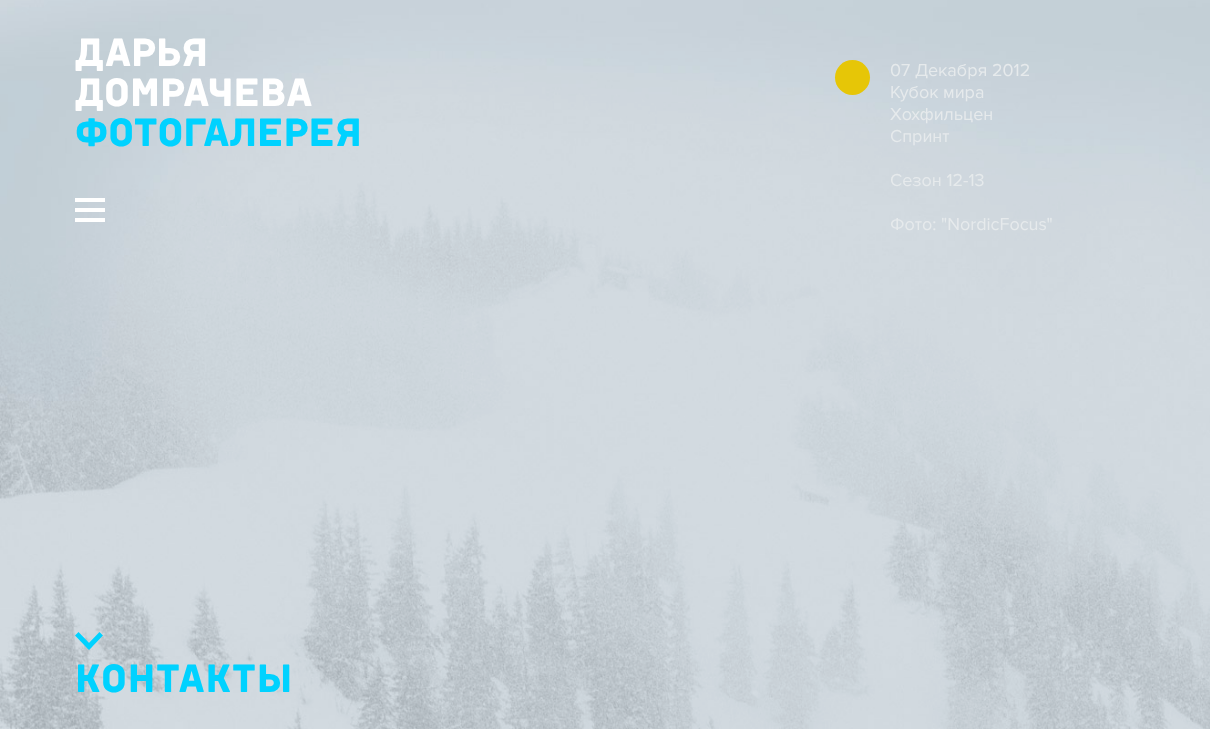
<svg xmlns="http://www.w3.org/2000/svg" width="1210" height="729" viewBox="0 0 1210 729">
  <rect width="100%" height="100%" fill="rgb(255,255,255)"/>
  <image x="0" y="0" width="1210" height="729" href="pic1.png"/>
  <g font-family="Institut" font-size="40" fill="rgb(255,255,255)">
    <text>
      <tspan x="75" y="66">Дарья</tspan>
      <tspan x="75" y="106">Домрачева</tspan>
    </text>
  </g>
  <text x="75" y="146" font-family="Institut" font-size="40" fill="rgb(0,210,255)">Фотогалерея</text>
  <rect x="75" y="198" width="30" height="4" fill="rgb(255,255,255)"/>
  <rect x="75" y="208" width="30" height="4" fill="rgb(255,255,255)"/>
  <rect x="75" y="218" width="30" height="4" fill="rgb(255,255,255)"/>
  <circle cx="852.5" cy="77.5" r="17.5" fill="rgb(230,198,7)"/>
  <g font-family="Proxima Nova" font-size="18" fill="rgb(230,234,236)">
    <text>
      <tspan x="890" y="76">07 Декабря 2012</tspan>
      <tspan x="890" y="98">Кубок мира</tspan>
      <tspan x="890" y="120">Хохфильцен</tspan>
      <tspan x="890" y="142">Спринт</tspan>
    </text>
    <text x="890" y="186">Сезон 12-13</text>
    <text x="890" y="230">Фото: "NordicFocus"</text>
  </g>
  <path d="M103 635.5L99.5 632L85.5 646.5L89 650ZM92.5 646.5L78.5 632L75 635.5L89 650Z" fill="rgb(0,210,255)"/>
  <text x="75" y="692" font-family="Institut" font-size="40" letter-spacing="1" fill="rgb(0,210,255)">КОНТАКТЫ</text>
</svg>
